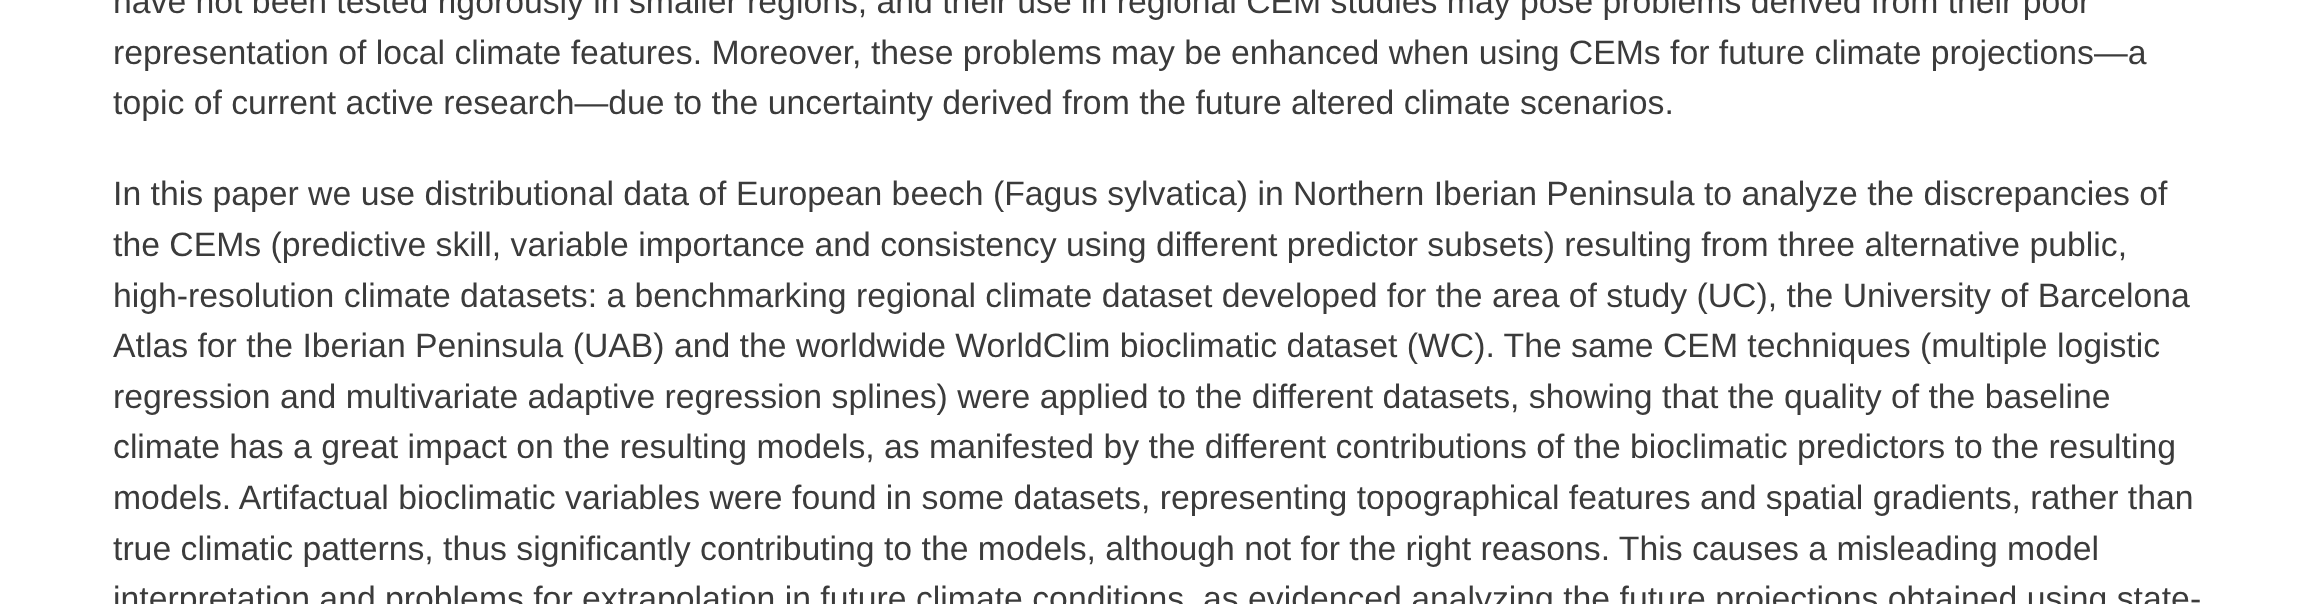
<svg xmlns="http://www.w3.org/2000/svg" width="2317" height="604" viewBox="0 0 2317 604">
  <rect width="100%" height="100%" fill="rgb(255,255,255)"/>
  <g font-family="Liberation Sans" font-size="33.75" fill="rgb(59,59,59)">
    <text>
      <tspan x="113" y="13">have not been tested rigorously in smaller regions, and their use in regional CEM studies may pose problems derived from their poor</tspan>
      <tspan x="113" y="64">representation of local climate features. Moreover, these problems may be enhanced when using CEMs for future climate projections—a</tspan>
      <tspan x="113" y="114">topic of current active research—due to the uncertainty derived from the future altered climate scenarios.</tspan>
    </text>
    <text>
      <tspan x="113" y="205">In this paper we use distributional data of European beech (Fagus sylvatica) in Northern Iberian Peninsula to analyze the discrepancies of</tspan>
      <tspan x="113" y="256">the CEMs (predictive skill, variable importance and consistency using different predictor subsets) resulting from three alternative public,</tspan>
      <tspan x="113" y="307">high-resolution climate datasets: a benchmarking regional climate dataset developed for the area of study (UC), the University of Barcelona</tspan>
      <tspan x="113" y="357">Atlas for the Iberian Peninsula (UAB) and the worldwide WorldClim bioclimatic dataset (WC). The same CEM techniques (multiple logistic</tspan>
      <tspan x="113" y="408">regression and multivariate adaptive regression splines) were applied to the different datasets, showing that the quality of the baseline</tspan>
      <tspan x="113" y="458">climate has a great impact on the resulting models, as manifested by the different contributions of the bioclimatic predictors to the resulting</tspan>
      <tspan x="113" y="509">models. Artifactual bioclimatic variables were found in some datasets, representing topographical features and spatial gradients, rather than</tspan>
      <tspan x="113" y="560">true climatic patterns, thus significantly contributing to the models, although not for the right reasons. This causes a misleading model</tspan>
      <tspan x="113" y="610">interpretation and problems for extrapolation in future climate conditions, as evidenced analyzing the future projections obtained using state-</tspan>
    </text>
  </g>
</svg>
